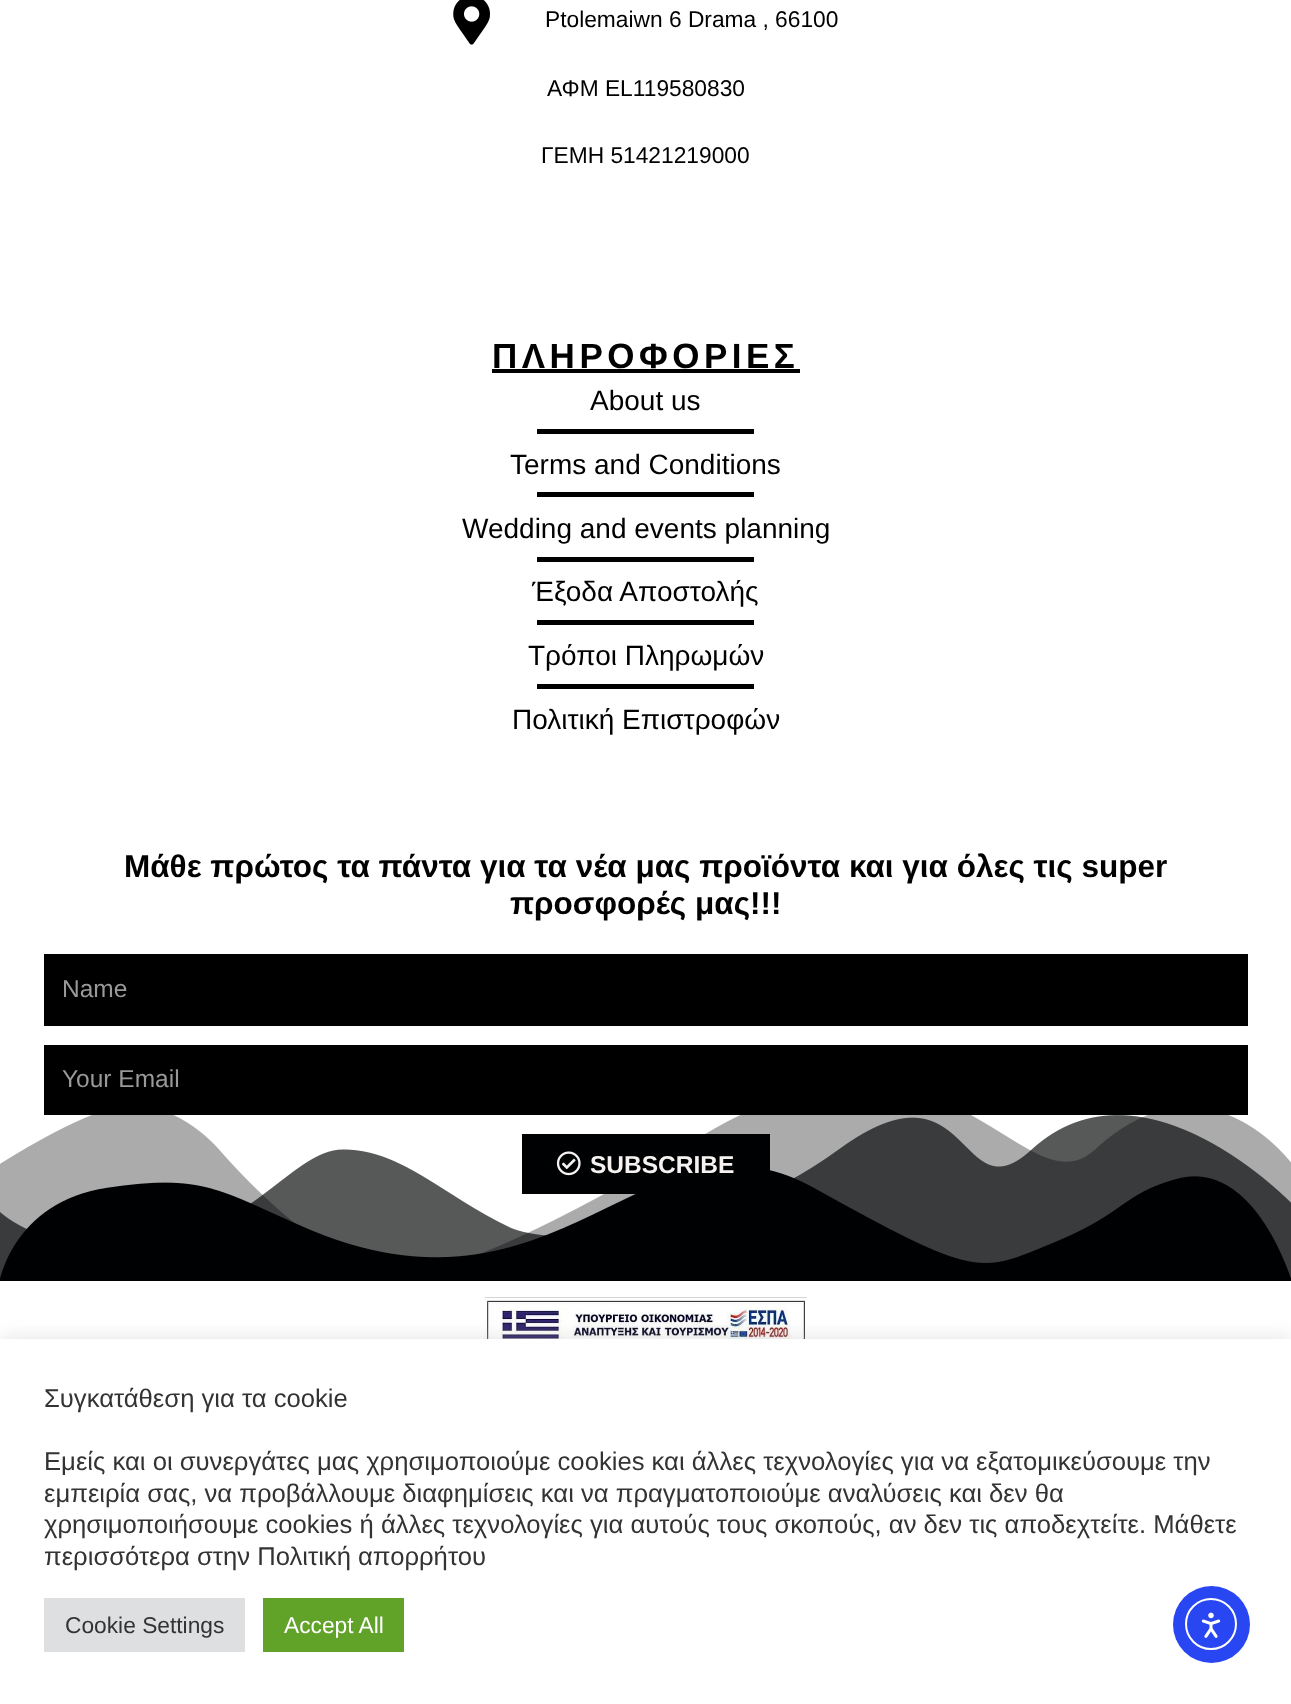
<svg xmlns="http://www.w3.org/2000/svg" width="1291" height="1704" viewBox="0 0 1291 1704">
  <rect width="100%" height="100%" fill="rgb(255,255,255)"/>
  <image x="453" y="0" width="37" height="45" href="pic1.png"/>
  <g font-family="Liberation Sans" font-size="22.75" fill="rgb(0,0,0)">
    <text x="545" y="27">Ptolemaiwn 6 Drama , 66100</text>
    <text x="547" y="96">ΑΦΜ EL119580830</text>
    <text x="541" y="163">ΓΕΜΗ 51421219000</text>
  </g>
  <text x="492" y="368" font-family="Liberation Sans" font-size="35" font-weight="bold" letter-spacing="4.5" fill="rgb(0,0,0)">ΠΛΗΡΟΦΟΡΙΕΣ</text>
  <rect x="492" y="369" width="308" height="4" fill="rgb(0,0,0)"/>
  <text x="590" y="410" font-family="Liberation Sans" font-size="28" fill="rgb(0,0,0)">About us</text>
  <rect x="537" y="429" width="217" height="5" fill="rgb(0,0,0)"/>
  <text x="510" y="474" font-family="Liberation Sans" font-size="28" fill="rgb(0,0,0)">Terms and Conditions</text>
  <rect x="537" y="492" width="217" height="5" fill="rgb(0,0,0)"/>
  <text x="462" y="538" font-family="Liberation Sans" font-size="28" fill="rgb(0,0,0)">Wedding and events planning</text>
  <rect x="537" y="557" width="217" height="5" fill="rgb(0,0,0)"/>
  <text x="532" y="601" font-family="Liberation Sans" font-size="28" fill="rgb(0,0,0)">Έξοδα Αποστολής</text>
  <rect x="537" y="620" width="217" height="5" fill="rgb(0,0,0)"/>
  <text x="528" y="665" font-family="Liberation Sans" font-size="28" fill="rgb(0,0,0)">Τρόποι Πληρωμών</text>
  <rect x="537" y="684" width="217" height="5" fill="rgb(0,0,0)"/>
  <text x="512" y="729" font-family="Liberation Sans" font-size="28" fill="rgb(0,0,0)">Πολιτική Επιστροφών</text>
  <g font-family="Liberation Sans" font-size="31.5" font-weight="bold" fill="rgb(0,0,0)">
    <text x="124" y="877">Μάθε πρώτος τα πάντα για τα νέα μας προϊόντα και για όλες τις super</text>
    <text x="510" y="914">προσφορές μας!!!</text>
  </g>
  <rect x="44" y="954" width="1204" height="72" fill="rgb(0,0,0)"/>
  <text x="62" y="997" font-family="Liberation Sans" font-size="24.5" fill="rgb(153,153,153)">Name</text>
  <rect x="44" y="1045" width="1204" height="70" fill="rgb(0,0,0)"/>
  <text x="62" y="1087" font-family="Liberation Sans" font-size="24.5" fill="rgb(153,153,153)">Your Email</text>
  <image x="0" y="1115" width="1291" height="166" href="pic3.png"/>
  <rect x="522" y="1134" width="248" height="60" fill="rgb(0,1,2)"/>
  <image x="556" y="1151" width="25" height="25" href="pic2.png"/>
  <text x="590" y="1173" font-family="Liberation Sans" font-size="24.5" font-weight="bold" fill="rgb(246,242,242)">SUBSCRIBE</text>
  <image x="484" y="1297" width="323" height="42" href="pic4.png"/>
  <rect x="0" y="1337" width="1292" height="366" fill="rgba(172,171,171,0.3)" filter="blur(9px)"/>
  <rect x="0" y="1339" width="1291" height="365" fill="rgb(255,255,255)"/>
  <g font-family="Liberation Sans" font-size="25.65" fill="rgb(51,51,51)">
    <text x="44" y="1407">Συγκατάθεση για τα cookie</text>
    <text>
      <tspan x="44" y="1470">Εμείς και οι συνεργάτες μας χρησιμοποιούμε cookies και άλλες τεχνολογίες για να εξατομικεύσουμε την</tspan>
      <tspan x="44" y="1502">εμπειρία σας, να προβάλλουμε διαφημίσεις και να πραγματοποιούμε αναλύσεις και δεν θα</tspan>
      <tspan x="44" y="1533">χρησιμοποιήσουμε cookies ή άλλες τεχνολογίες για αυτούς τους σκοπούς, αν δεν τις αποδεχτείτε. Μάθετε</tspan>
      <tspan x="44" y="1565">περισσότερα στην Πολιτική απορρήτου</tspan>
    </text>
  </g>
  <rect x="44" y="1598" width="201" height="54" fill="rgb(222,223,224)"/>
  <text x="65" y="1633" font-family="Liberation Sans" font-size="22.75" fill="rgb(51,51,51)">Cookie Settings</text>
  <rect x="263" y="1598" width="141" height="54" fill="rgb(97,162,41)"/>
  <text x="284" y="1633" font-family="Liberation Sans" font-size="22.75" fill="rgb(255,255,255)">Accept All</text>
  <circle cx="1211.5" cy="1624.5" r="38.5" fill="rgb(40,71,243)"/>
  <circle cx="1211" cy="1624" r="25" fill="none" stroke="rgb(255,255,255)" stroke-width="2"/>
  <image x="1201" y="1612" width="20" height="26" href="pic5.png"/>
</svg>
